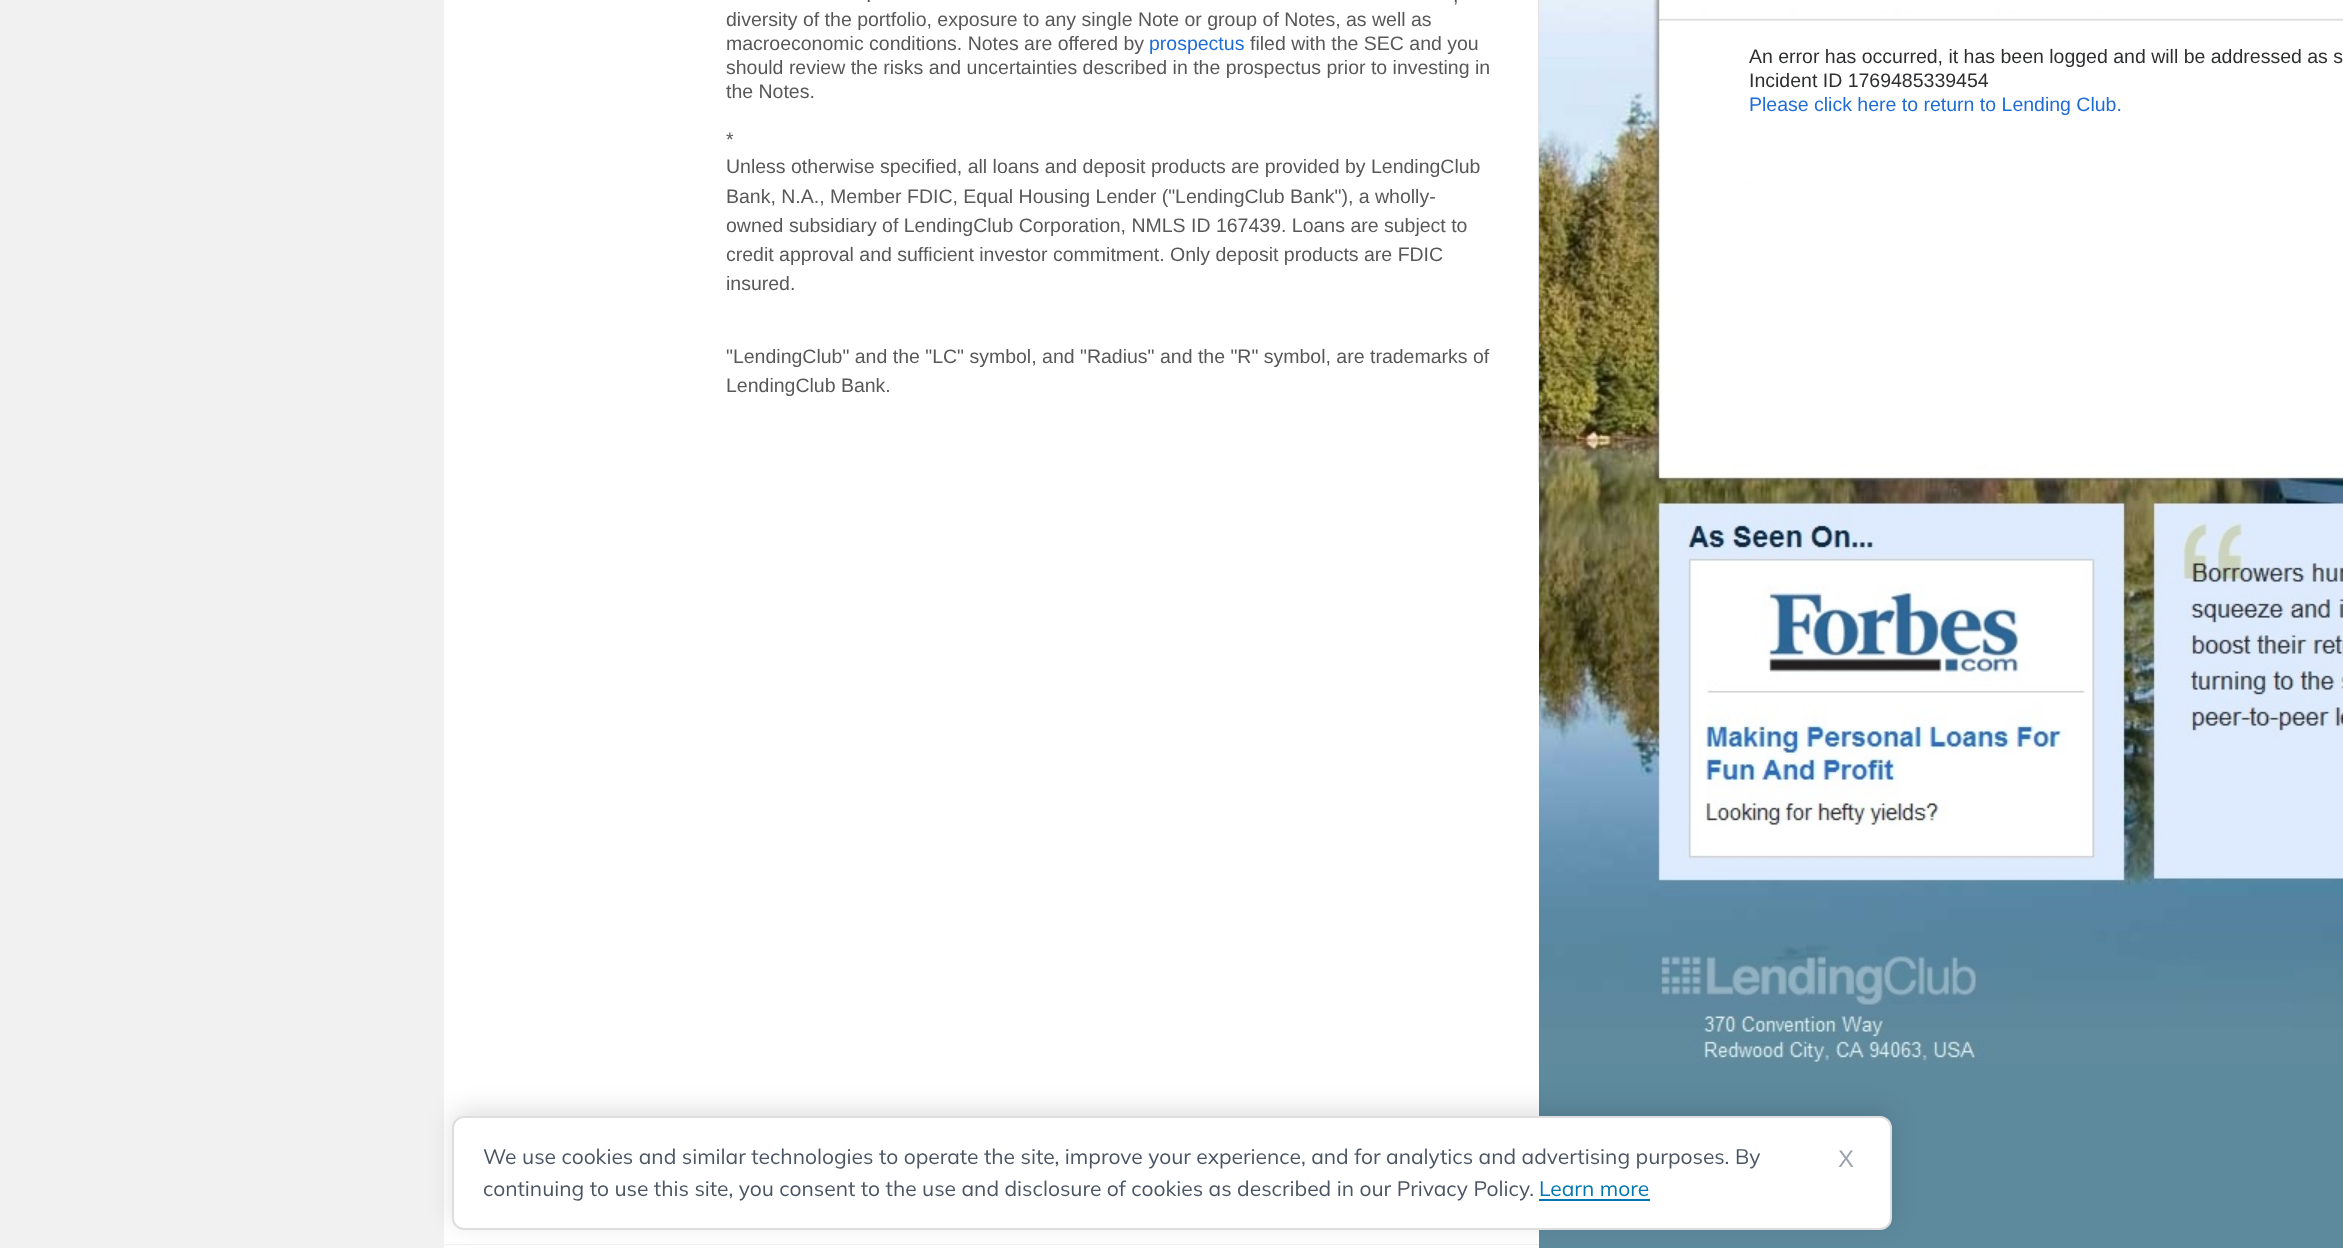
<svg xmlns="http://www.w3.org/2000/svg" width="2343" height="1248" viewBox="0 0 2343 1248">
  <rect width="100%" height="100%" fill="rgb(241,241,241)"/>
  <rect x="444" y="0" width="1095" height="1244" fill="rgb(255,255,255)"/>
  <rect x="1538" y="0" width="1" height="482" fill="rgb(226,226,226)"/>
  <g font-family="Liberation Sans" font-size="19.5" fill="rgb(88,88,88)">
    <text x="866" y="2">.</text>
    <text x="1453" y="2">,</text>
    <text>
      <tspan x="726" y="26">diversity of the portfolio, exposure to any single Note or group of Notes, as well as</tspan>
      <tspan x="726" y="50">macroeconomic conditions. Notes are offered by</tspan>
    </text>
  </g>
  <text x="1149" y="50" font-family="Liberation Sans" font-size="19.5" fill="rgb(31,108,214)">prospectus</text>
  <g font-family="Liberation Sans" font-size="19.5" fill="rgb(88,88,88)">
    <text x="1250" y="50">filed with the SEC and you</text>
    <text>
      <tspan x="726" y="74">should review the risks and uncertainties described in the prospectus prior to investing in</tspan>
      <tspan x="726" y="98">the Notes.</tspan>
    </text>
    <text>
      <tspan x="726" y="146">*</tspan>
      <tspan x="726" y="173">Unless otherwise specified, all loans and deposit products are provided by LendingClub</tspan>
      <tspan x="726" y="203">Bank, N.A., Member FDIC, Equal Housing Lender ("LendingClub Bank"), a wholly-</tspan>
      <tspan x="726" y="232">owned subsidiary of LendingClub Corporation, NMLS ID 167439. Loans are subject to</tspan>
      <tspan x="726" y="261">credit approval and sufficient investor commitment. Only deposit products are FDIC</tspan>
      <tspan x="726" y="290">insured.</tspan>
    </text>
    <text>
      <tspan x="726" y="363">"LendingClub" and the "LC" symbol, and "Radius" and the "R" symbol, are trademarks of</tspan>
      <tspan x="726" y="392">LendingClub Bank.</tspan>
    </text>
  </g>
  <rect x="1539" y="1065" width="804" height="183" fill="rgb(94,138,158)"/>
  <image x="1539" y="0" width="804" height="1065" href="pic1.png"/>
  <g font-family="Liberation Sans" font-size="19.5" fill="rgb(46,47,49)">
    <text>
      <tspan x="1749" y="63">An error has occurred, it has been logged and will be addressed as s</tspan>
      <tspan x="1749" y="87">Incident ID 1769485339454</tspan>
    </text>
  </g>
  <text x="1749" y="111" font-family="Liberation Sans" font-size="19.5" fill="rgb(31,108,214)">Please click here to return to Lending Club.</text>
  <rect x="444" y="1245" width="1095" height="3" fill="rgb(255,255,255)"/>
  <rect x="452" y="1110" width="1440" height="114" rx="12" fill="rgba(0,0,0,0.12)" filter="blur(12px)"/>
  <rect x="453" y="1117" width="1438" height="112" rx="11" fill="rgb(255,255,255)" stroke="rgb(222,222,222)" stroke-width="2"/>
  <g font-family="Mulish" font-size="21" fill="rgb(75,85,99)">
    <text>
      <tspan x="483" y="1164">We use cookies and similar technologies to operate the site, improve your experience, and for analytics and advertising purposes. By</tspan>
      <tspan x="483" y="1196">continuing to use this site, you consent to the use and disclosure of cookies as described in our Privacy Policy.</tspan>
    </text>
  </g>
  <text x="1539" y="1196" font-family="Mulish" font-size="21" fill="rgb(0,119,179)">Learn more</text>
  <rect x="1539" y="1199" width="111" height="2" fill="rgb(0,119,179)"/>
  <text x="1838" y="1167" font-family="Liberation Sans" font-size="24" fill="rgb(156,163,175)">X</text>
</svg>
